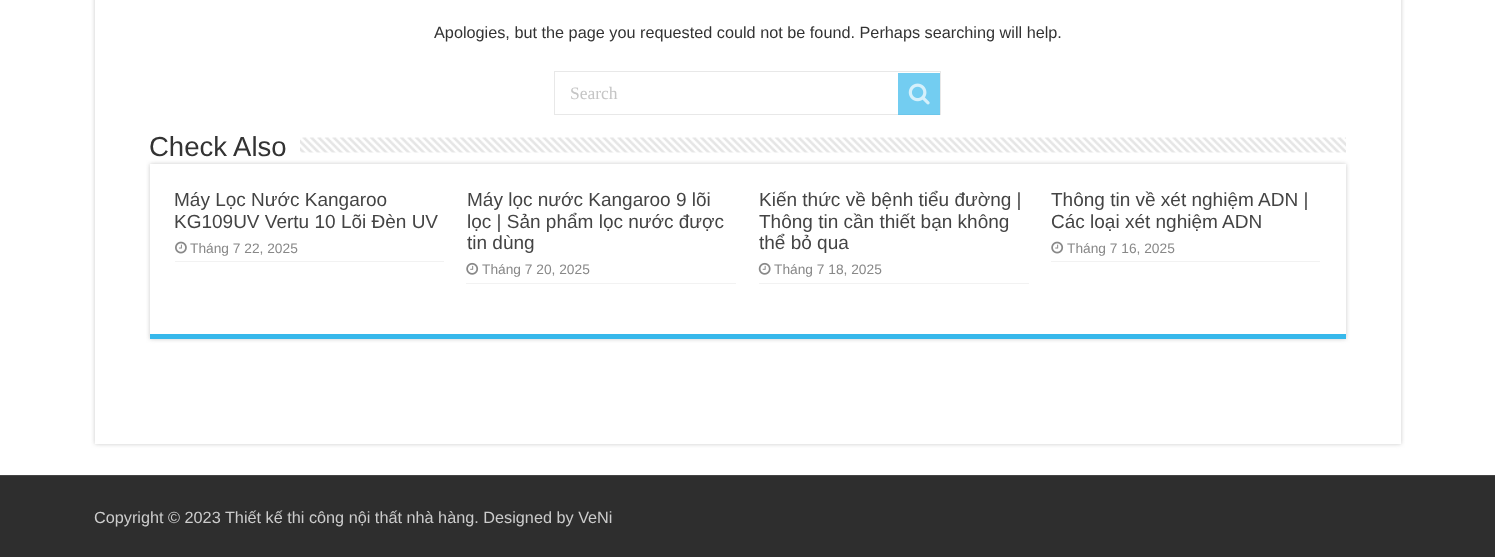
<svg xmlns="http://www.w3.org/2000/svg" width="1495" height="557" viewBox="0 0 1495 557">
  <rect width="100%" height="100%" fill="rgb(255,255,255)"/>
  <rect x="95" y="-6" width="1306" height="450" fill="rgb(202,202,202)" filter="blur(2px)"/>
  <rect x="95" y="0" width="1306" height="444" fill="rgb(255,255,255)"/>
  <text x="434" y="38" font-family="Liberation Sans" font-size="16.25" fill="rgb(51,51,51)">Apologies, but the page you requested could not be found. Perhaps searching will help.</text>
  <rect x="554.5" y="71.5" width="386" height="43" fill="none" stroke="rgb(232,232,232)"/>
  <text x="570" y="99" font-family="Liberation Serif" font-size="17.5" fill="rgb(197,197,197)">Search</text>
  <rect x="898" y="73" width="42" height="42" fill="rgba(55,184,235,0.7)"/>
  <image x="908" y="83" width="22" height="22" href="pic1.png"/>
  <text x="149" y="156" font-family="Liberation Sans" font-size="27.5" fill="rgb(51,51,51)">Check Also</text>
  <image x="300" y="137" width="1046" height="16" href="pic2.png"/>
  <rect x="150" y="164" width="1196" height="175" fill="rgb(202,202,202)" filter="blur(2px)"/>
  <rect x="150" y="164" width="1196" height="170" fill="rgb(255,255,255)"/>
  <rect x="150" y="334" width="1196" height="5" fill="rgb(55,184,235)"/>
  <g font-family="Liberation Sans" font-size="19" fill="rgb(68,68,68)">
    <text>
      <tspan x="174" y="206">Máy Lọc Nước Kangaroo</tspan>
      <tspan x="174" y="228">KG109UV Vertu 10 Lõi Đèn UV</tspan>
    </text>
  </g>
  <rect x="175" y="261" width="269" height="1" fill="rgb(242,242,242)"/>
  <image x="175" y="241" width="12" height="13" href="pic3.png"/>
  <text x="190" y="253" font-family="Liberation Sans" font-size="13.75" fill="rgb(136,136,136)">Tháng 7 22, 2025</text>
  <g font-family="Liberation Sans" font-size="19" fill="rgb(68,68,68)">
    <text>
      <tspan x="467" y="206">Máy lọc nước Kangaroo 9 lõi</tspan>
      <tspan x="467" y="228">lọc | Sản phẩm lọc nước được</tspan>
      <tspan x="467" y="249">tin dùng</tspan>
    </text>
  </g>
  <rect x="466" y="283" width="270" height="1" fill="rgb(242,242,242)"/>
  <image x="466" y="262" width="13" height="13" href="pic4.png"/>
  <text x="482" y="274" font-family="Liberation Sans" font-size="13.75" fill="rgb(136,136,136)">Tháng 7 20, 2025</text>
  <g font-family="Liberation Sans" font-size="19" fill="rgb(68,68,68)">
    <text>
      <tspan x="759" y="206">Kiến thức về bệnh tiểu đường |</tspan>
      <tspan x="759" y="228">Thông tin cần thiết bạn không</tspan>
      <tspan x="759" y="249">thể bỏ qua</tspan>
    </text>
  </g>
  <rect x="759" y="283" width="270" height="1" fill="rgb(242,242,242)"/>
  <image x="758" y="262" width="13" height="13" href="pic5.png"/>
  <text x="774" y="274" font-family="Liberation Sans" font-size="13.75" fill="rgb(136,136,136)">Tháng 7 18, 2025</text>
  <g font-family="Liberation Sans" font-size="19" fill="rgb(68,68,68)">
    <text>
      <tspan x="1051" y="206">Thông tin về xét nghiệm ADN |</tspan>
      <tspan x="1051" y="228">Các loại xét nghiệm ADN</tspan>
    </text>
  </g>
  <rect x="1051" y="261" width="269" height="1" fill="rgb(242,242,242)"/>
  <image x="1051" y="241" width="13" height="13" href="pic6.png"/>
  <text x="1067" y="253" font-family="Liberation Sans" font-size="13.75" fill="rgb(136,136,136)">Tháng 7 16, 2025</text>
  <rect x="0" y="476" width="1495" height="81" fill="rgb(46,46,46)"/>
  <rect x="0" y="475" width="1495" height="1" fill="rgb(68,68,68)"/>
  <text x="94" y="523" font-family="Liberation Sans" font-size="16.25" fill="rgb(204,204,204)">Copyright © 2023 Thiết kế thi công nội thất nhà hàng. Designed by VeNi</text>
</svg>
